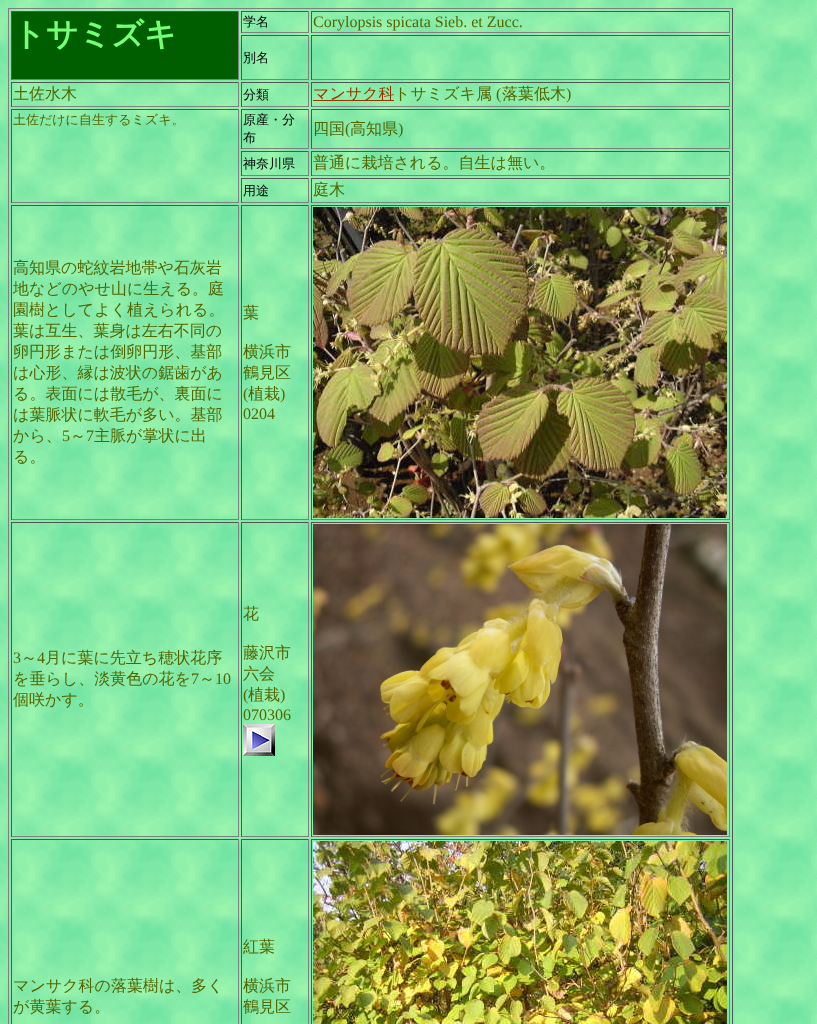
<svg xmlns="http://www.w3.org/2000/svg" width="817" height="1024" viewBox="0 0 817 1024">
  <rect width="100%" height="100%" fill="rgb(255,255,255)"/>
  <image x="0" y="0" width="817" height="1024" href="pic1.png"/>
  <rect x="8" y="8" width="725" height="1" fill="rgb(128,128,128)"/>
  <rect x="732" y="8" width="1" height="1016" fill="rgb(85,85,85)"/>
  <rect x="8" y="8" width="1" height="1016" fill="rgb(128,128,128)"/>
  <rect x="12" y="12" width="226" height="67" fill="rgb(0,94,0)"/>
  <rect x="11" y="11" width="228" height="1" fill="rgb(85,85,85)"/>
  <rect x="238" y="11" width="1" height="69" fill="rgb(128,128,128)"/>
  <rect x="11" y="79" width="228" height="1" fill="rgb(128,128,128)"/>
  <rect x="11" y="11" width="1" height="69" fill="rgb(85,85,85)"/>
  <text x="13" y="45" font-family="WenQuanYi Zen Hei" font-size="32" font-weight="bold" fill="rgb(117,255,117)">トサミズキ</text>
  <rect x="241" y="11" width="68" height="1" fill="rgb(85,85,85)"/>
  <rect x="308" y="11" width="1" height="22" fill="rgb(128,128,128)"/>
  <rect x="241" y="32" width="68" height="1" fill="rgb(128,128,128)"/>
  <rect x="241" y="11" width="1" height="22" fill="rgb(85,85,85)"/>
  <text x="243" y="26" font-family="WenQuanYi Zen Hei" font-size="13" font-weight="500" fill="rgb(0,0,0)">学名</text>
  <rect x="311" y="11" width="419" height="1" fill="rgb(85,85,85)"/>
  <rect x="729" y="11" width="1" height="22" fill="rgb(128,128,128)"/>
  <rect x="311" y="32" width="419" height="1" fill="rgb(128,128,128)"/>
  <rect x="311" y="11" width="1" height="22" fill="rgb(85,85,85)"/>
  <text x="313" y="27" font-family="Liberation Serif" font-size="16" fill="rgb(82,102,0)">Corylopsis spicata Sieb. et Zucc.</text>
  <rect x="241" y="35" width="68" height="1" fill="rgb(85,85,85)"/>
  <rect x="308" y="35" width="1" height="45" fill="rgb(128,128,128)"/>
  <rect x="241" y="79" width="68" height="1" fill="rgb(128,128,128)"/>
  <rect x="241" y="35" width="1" height="45" fill="rgb(85,85,85)"/>
  <text x="243" y="62" font-family="WenQuanYi Zen Hei" font-size="13" font-weight="500" fill="rgb(0,0,0)">別名</text>
  <rect x="311" y="35" width="419" height="1" fill="rgb(85,85,85)"/>
  <rect x="729" y="35" width="1" height="45" fill="rgb(128,128,128)"/>
  <rect x="311" y="79" width="419" height="1" fill="rgb(128,128,128)"/>
  <rect x="311" y="35" width="1" height="45" fill="rgb(85,85,85)"/>
  <rect x="11" y="82" width="228" height="1" fill="rgb(85,85,85)"/>
  <rect x="238" y="82" width="1" height="25" fill="rgb(128,128,128)"/>
  <rect x="11" y="106" width="228" height="1" fill="rgb(128,128,128)"/>
  <rect x="11" y="82" width="1" height="25" fill="rgb(85,85,85)"/>
  <text x="13" y="99" font-family="WenQuanYi Zen Hei" font-size="16" font-weight="500" fill="rgb(82,102,0)">土佐水木</text>
  <rect x="241" y="82" width="68" height="1" fill="rgb(85,85,85)"/>
  <rect x="308" y="82" width="1" height="25" fill="rgb(128,128,128)"/>
  <rect x="241" y="106" width="68" height="1" fill="rgb(128,128,128)"/>
  <rect x="241" y="82" width="1" height="25" fill="rgb(85,85,85)"/>
  <text x="243" y="99" font-family="WenQuanYi Zen Hei" font-size="13" font-weight="500" fill="rgb(0,0,0)">分類</text>
  <rect x="311" y="82" width="419" height="1" fill="rgb(85,85,85)"/>
  <rect x="729" y="82" width="1" height="25" fill="rgb(128,128,128)"/>
  <rect x="311" y="106" width="419" height="1" fill="rgb(128,128,128)"/>
  <rect x="311" y="82" width="1" height="25" fill="rgb(85,85,85)"/>
  <rect x="313" y="100" width="81" height="1" fill="rgb(153,51,0)"/>
  <text x="313" y="99" font-family="WenQuanYi Zen Hei" font-size="16" font-weight="500" fill="rgb(153,51,0)">マンサク科</text>
  <text x="394" y="99" font-family="WenQuanYi Zen Hei" font-size="16" font-weight="500" fill="rgb(82,102,0)">トサミズキ属</text>
  <text x="496" y="99" font-family="Liberation Serif" font-size="16" fill="rgb(82,102,0)">(</text>
  <text x="502" y="99" font-family="WenQuanYi Zen Hei" font-size="16" font-weight="500" fill="rgb(82,102,0)">落葉低木</text>
  <text x="566" y="99" font-family="Liberation Serif" font-size="16" fill="rgb(82,102,0)">)</text>
  <rect x="11" y="109" width="228" height="1" fill="rgb(85,85,85)"/>
  <rect x="238" y="109" width="1" height="94" fill="rgb(128,128,128)"/>
  <rect x="11" y="202" width="228" height="1" fill="rgb(128,128,128)"/>
  <rect x="11" y="109" width="1" height="94" fill="rgb(85,85,85)"/>
  <text x="13" y="124" font-family="WenQuanYi Zen Hei" font-size="13" font-weight="500" fill="rgb(82,102,0)">土佐だけに自生するミズキ。</text>
  <rect x="241" y="109" width="68" height="1" fill="rgb(85,85,85)"/>
  <rect x="308" y="109" width="1" height="40" fill="rgb(128,128,128)"/>
  <rect x="241" y="148" width="68" height="1" fill="rgb(128,128,128)"/>
  <rect x="241" y="109" width="1" height="40" fill="rgb(85,85,85)"/>
  <g font-family="WenQuanYi Zen Hei" font-size="13" font-weight="500" fill="rgb(0,0,0)">
    <text>
      <tspan x="243" y="124">原産・分</tspan>
      <tspan x="243" y="142">布</tspan>
    </text>
  </g>
  <rect x="311" y="109" width="419" height="1" fill="rgb(85,85,85)"/>
  <rect x="729" y="109" width="1" height="40" fill="rgb(128,128,128)"/>
  <rect x="311" y="148" width="419" height="1" fill="rgb(128,128,128)"/>
  <rect x="311" y="109" width="1" height="40" fill="rgb(85,85,85)"/>
  <text x="313" y="134" font-family="WenQuanYi Zen Hei" font-size="16" font-weight="500" fill="rgb(82,102,0)">四国</text>
  <text x="345" y="134" font-family="Liberation Serif" font-size="16" fill="rgb(82,102,0)">(</text>
  <text x="350" y="134" font-family="WenQuanYi Zen Hei" font-size="16" font-weight="500" fill="rgb(82,102,0)">高知県</text>
  <text x="398" y="134" font-family="Liberation Serif" font-size="16" fill="rgb(82,102,0)">)</text>
  <rect x="241" y="151" width="68" height="1" fill="rgb(85,85,85)"/>
  <rect x="308" y="151" width="1" height="25" fill="rgb(128,128,128)"/>
  <rect x="241" y="175" width="68" height="1" fill="rgb(128,128,128)"/>
  <rect x="241" y="151" width="1" height="25" fill="rgb(85,85,85)"/>
  <text x="243" y="168" font-family="WenQuanYi Zen Hei" font-size="13" font-weight="500" fill="rgb(0,0,0)">神奈川県</text>
  <rect x="311" y="151" width="419" height="1" fill="rgb(85,85,85)"/>
  <rect x="729" y="151" width="1" height="25" fill="rgb(128,128,128)"/>
  <rect x="311" y="175" width="419" height="1" fill="rgb(128,128,128)"/>
  <rect x="311" y="151" width="1" height="25" fill="rgb(85,85,85)"/>
  <text x="313" y="168" font-family="WenQuanYi Zen Hei" font-size="16" font-weight="500" fill="rgb(82,102,0)">普通に栽培される。自生は無い。</text>
  <rect x="241" y="178" width="68" height="1" fill="rgb(85,85,85)"/>
  <rect x="308" y="178" width="1" height="25" fill="rgb(128,128,128)"/>
  <rect x="241" y="202" width="68" height="1" fill="rgb(128,128,128)"/>
  <rect x="241" y="178" width="1" height="25" fill="rgb(85,85,85)"/>
  <text x="243" y="195" font-family="WenQuanYi Zen Hei" font-size="13" font-weight="500" fill="rgb(0,0,0)">用途</text>
  <rect x="311" y="178" width="419" height="1" fill="rgb(85,85,85)"/>
  <rect x="729" y="178" width="1" height="25" fill="rgb(128,128,128)"/>
  <rect x="311" y="202" width="419" height="1" fill="rgb(128,128,128)"/>
  <rect x="311" y="178" width="1" height="25" fill="rgb(85,85,85)"/>
  <text x="313" y="195" font-family="WenQuanYi Zen Hei" font-size="16" font-weight="500" fill="rgb(82,102,0)">庭木</text>
  <rect x="11" y="205" width="228" height="1" fill="rgb(85,85,85)"/>
  <rect x="238" y="205" width="1" height="315" fill="rgb(128,128,128)"/>
  <rect x="11" y="519" width="228" height="1" fill="rgb(128,128,128)"/>
  <rect x="11" y="205" width="1" height="315" fill="rgb(85,85,85)"/>
  <g font-family="WenQuanYi Zen Hei" font-size="16" font-weight="500" fill="rgb(82,102,0)">
    <text>
      <tspan x="13" y="273">高知県の蛇紋岩地帯や石灰岩</tspan>
      <tspan x="13" y="294">地などのやせ山に生える。庭</tspan>
      <tspan x="13" y="315">園樹としてよく植えられる。</tspan>
      <tspan x="13" y="336">葉は互生、葉身は左右不同の</tspan>
      <tspan x="13" y="357">卵円形または倒卵円形、基部</tspan>
      <tspan x="13" y="378">は心形、縁は波状の鋸歯があ</tspan>
      <tspan x="13" y="399">る。表面には散毛が、裏面に</tspan>
      <tspan x="13" y="420">は葉脈状に軟毛が多い。基部</tspan>
      <tspan x="13" y="441">から、</tspan>
    </text>
  </g>
  <text x="62" y="441" font-family="Liberation Serif" font-size="16" fill="rgb(82,102,0)">5</text>
  <text x="70" y="441" font-family="WenQuanYi Zen Hei" font-size="16" font-weight="500" fill="rgb(82,102,0)">～</text>
  <text x="86" y="441" font-family="Liberation Serif" font-size="16" fill="rgb(82,102,0)">7</text>
  <g font-family="WenQuanYi Zen Hei" font-size="16" font-weight="500" fill="rgb(82,102,0)">
    <text x="94" y="441">主脈が掌状に出</text>
    <text x="13" y="462">る。</text>
  </g>
  <rect x="241" y="205" width="68" height="1" fill="rgb(85,85,85)"/>
  <rect x="308" y="205" width="1" height="315" fill="rgb(128,128,128)"/>
  <rect x="241" y="519" width="68" height="1" fill="rgb(128,128,128)"/>
  <rect x="241" y="205" width="1" height="315" fill="rgb(85,85,85)"/>
  <g font-family="WenQuanYi Zen Hei" font-size="16" font-weight="500" fill="rgb(82,102,0)">
    <text x="243" y="318">葉</text>
    <text>
      <tspan x="243" y="357">横浜市</tspan>
      <tspan x="243" y="378">鶴見区</tspan>
    </text>
  </g>
  <text x="243" y="399" font-family="Liberation Serif" font-size="16" fill="rgb(82,102,0)">(</text>
  <text x="248" y="399" font-family="WenQuanYi Zen Hei" font-size="16" font-weight="500" fill="rgb(82,102,0)">植栽</text>
  <g font-family="Liberation Serif" font-size="16" fill="rgb(82,102,0)">
    <text x="280" y="399">)</text>
    <text x="243" y="419">0204</text>
  </g>
  <rect x="311" y="205" width="419" height="1" fill="rgb(85,85,85)"/>
  <rect x="729" y="205" width="1" height="315" fill="rgb(128,128,128)"/>
  <rect x="311" y="519" width="419" height="1" fill="rgb(128,128,128)"/>
  <rect x="311" y="205" width="1" height="315" fill="rgb(85,85,85)"/>
  <image x="313" y="207" width="414" height="311" href="pic2.png"/>
  <rect x="11" y="522" width="228" height="1" fill="rgb(85,85,85)"/>
  <rect x="238" y="522" width="1" height="315" fill="rgb(128,128,128)"/>
  <rect x="11" y="836" width="228" height="1" fill="rgb(128,128,128)"/>
  <rect x="11" y="522" width="1" height="315" fill="rgb(85,85,85)"/>
  <text x="13" y="663" font-family="Liberation Serif" font-size="16" fill="rgb(82,102,0)">3</text>
  <text x="21" y="663" font-family="WenQuanYi Zen Hei" font-size="16" font-weight="500" fill="rgb(82,102,0)">～</text>
  <text x="37" y="663" font-family="Liberation Serif" font-size="16" fill="rgb(82,102,0)">4</text>
  <g font-family="WenQuanYi Zen Hei" font-size="16" font-weight="500" fill="rgb(82,102,0)">
    <text x="45" y="663">月に葉に先立ち穂状花序</text>
    <text x="13" y="684">を垂らし、淡黄色の花を</text>
  </g>
  <text x="191" y="684" font-family="Liberation Serif" font-size="16" fill="rgb(82,102,0)">7</text>
  <text x="199" y="684" font-family="WenQuanYi Zen Hei" font-size="16" font-weight="500" fill="rgb(82,102,0)">～</text>
  <text x="215" y="684" font-family="Liberation Serif" font-size="16" fill="rgb(82,102,0)">10</text>
  <text x="13" y="705" font-family="WenQuanYi Zen Hei" font-size="16" font-weight="500" fill="rgb(82,102,0)">個咲かす。</text>
  <rect x="241" y="522" width="68" height="1" fill="rgb(85,85,85)"/>
  <rect x="308" y="522" width="1" height="315" fill="rgb(128,128,128)"/>
  <rect x="241" y="836" width="68" height="1" fill="rgb(128,128,128)"/>
  <rect x="241" y="522" width="1" height="315" fill="rgb(85,85,85)"/>
  <g font-family="WenQuanYi Zen Hei" font-size="16" font-weight="500" fill="rgb(82,102,0)">
    <text x="243" y="619">花</text>
    <text>
      <tspan x="243" y="658">藤沢市</tspan>
      <tspan x="243" y="679">六会</tspan>
    </text>
  </g>
  <text x="243" y="700" font-family="Liberation Serif" font-size="16" fill="rgb(82,102,0)">(</text>
  <text x="248" y="700" font-family="WenQuanYi Zen Hei" font-size="16" font-weight="500" fill="rgb(82,102,0)">植栽</text>
  <g font-family="Liberation Serif" font-size="16" fill="rgb(82,102,0)">
    <text x="280" y="700">)</text>
    <text x="243" y="720">070306</text>
  </g>
  <image x="243" y="724" width="32" height="32" href="pic3.png"/>
  <rect x="311" y="522" width="419" height="1" fill="rgb(85,85,85)"/>
  <rect x="729" y="522" width="1" height="315" fill="rgb(128,128,128)"/>
  <rect x="311" y="836" width="419" height="1" fill="rgb(128,128,128)"/>
  <rect x="311" y="522" width="1" height="315" fill="rgb(85,85,85)"/>
  <image x="313" y="524" width="414" height="311" href="pic4.png"/>
  <rect x="11" y="839" width="228" height="1" fill="rgb(85,85,85)"/>
  <rect x="238" y="839" width="1" height="185" fill="rgb(128,128,128)"/>
  <rect x="11" y="839" width="1" height="185" fill="rgb(85,85,85)"/>
  <g font-family="WenQuanYi Zen Hei" font-size="16" font-weight="500" fill="rgb(82,102,0)">
    <text>
      <tspan x="13" y="991">マンサク科の落葉樹は、多く</tspan>
      <tspan x="13" y="1012">が黄葉する。</tspan>
    </text>
  </g>
  <rect x="241" y="839" width="68" height="1" fill="rgb(85,85,85)"/>
  <rect x="308" y="839" width="1" height="185" fill="rgb(128,128,128)"/>
  <rect x="241" y="839" width="1" height="185" fill="rgb(85,85,85)"/>
  <g font-family="WenQuanYi Zen Hei" font-size="16" font-weight="500" fill="rgb(82,102,0)">
    <text x="243" y="952">紅葉</text>
    <text>
      <tspan x="243" y="991">横浜市</tspan>
      <tspan x="243" y="1012">鶴見区</tspan>
    </text>
  </g>
  <rect x="311" y="839" width="419" height="1" fill="rgb(85,85,85)"/>
  <rect x="729" y="839" width="1" height="185" fill="rgb(128,128,128)"/>
  <rect x="311" y="839" width="1" height="185" fill="rgb(85,85,85)"/>
  <image x="313" y="841" width="414" height="183" href="pic5.png"/>
</svg>
